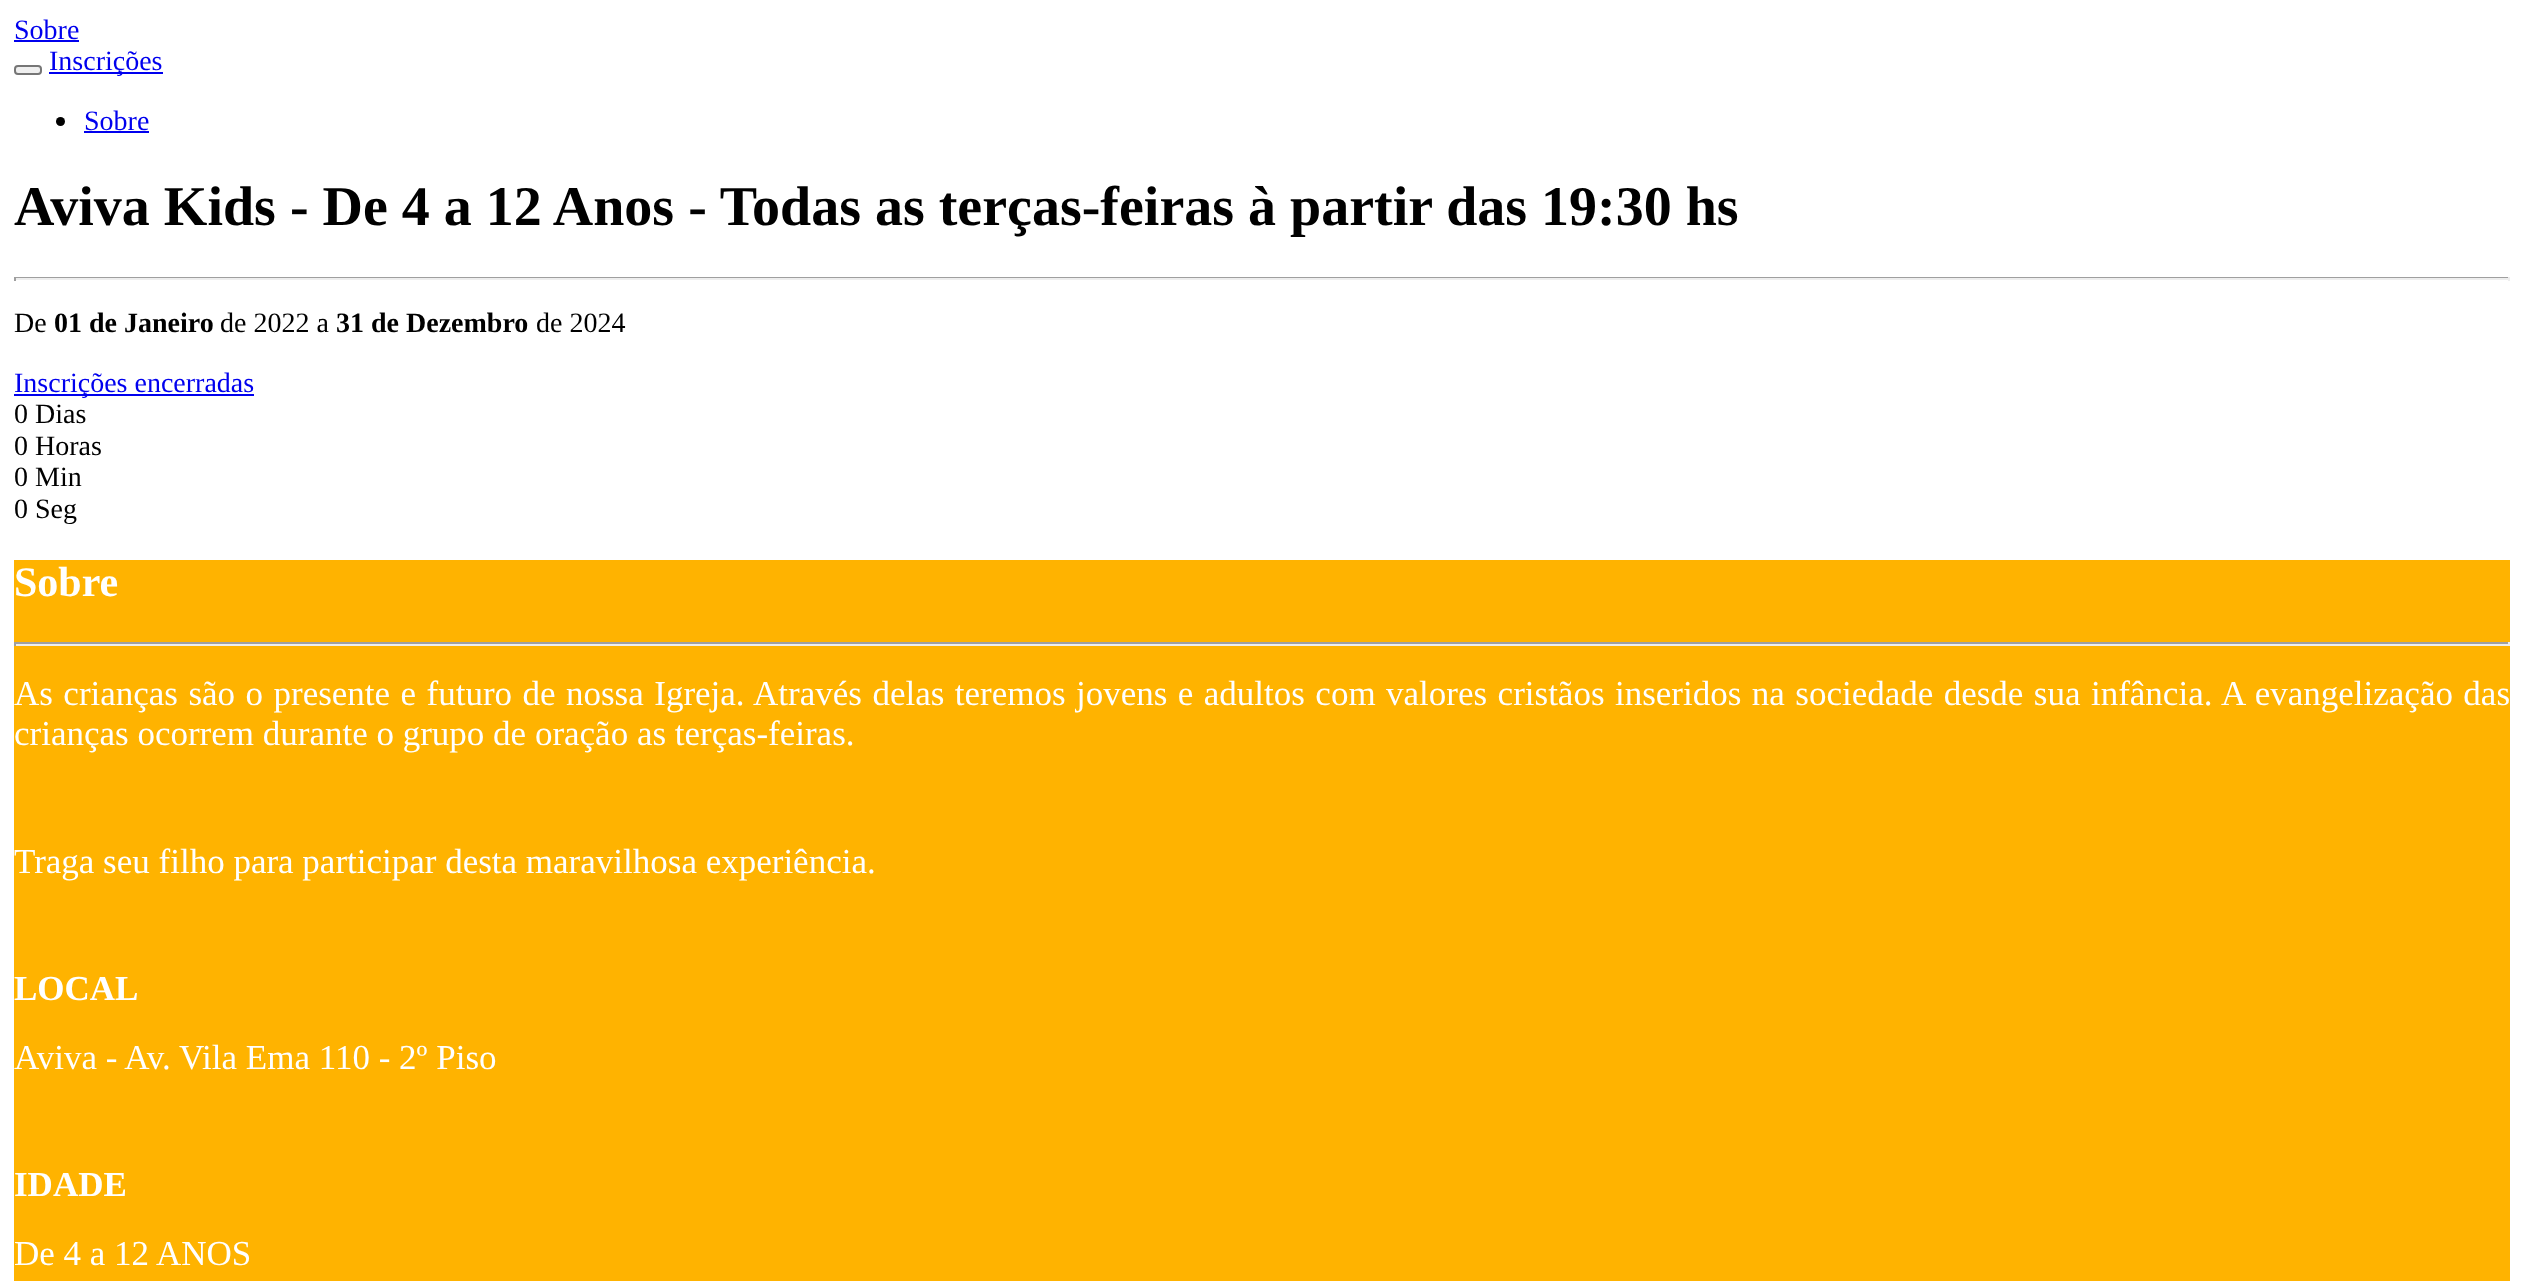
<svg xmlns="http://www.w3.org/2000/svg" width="2522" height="1281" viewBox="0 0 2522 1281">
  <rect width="100%" height="100%" fill="rgb(255,255,255)"/>
  <text x="14" y="39" font-family="Liberation Serif" font-size="28" fill="rgb(0,0,238)">Sobre</text>
  <rect x="14" y="40" width="65" height="2" fill="rgb(0,0,238)"/>
  <rect x="15" y="66" width="26" height="8" rx="3" fill="rgb(239,239,239)" stroke="rgb(118,118,118)" stroke-width="2"/>
  <rect x="49" y="72" width="114" height="2" fill="rgb(0,0,238)"/>
  <text x="49" y="70" font-family="Liberation Serif" font-size="28" fill="rgb(0,0,238)">Inscrições</text>
  <circle cx="60.5" cy="121.5" r="4.5" fill="rgb(0,0,0)"/>
  <text x="84" y="130" font-family="Liberation Serif" font-size="28" fill="rgb(0,0,238)">Sobre</text>
  <rect x="84" y="131" width="65" height="2" fill="rgb(0,0,238)"/>
  <text x="14" y="225" font-family="Liberation Serif" font-size="56" font-weight="bold" fill="rgb(0,0,0)">Aviva Kids - De 4 a 12 Anos - Todas as terças-feiras à partir das 19:30 hs</text>
  <rect x="14" y="277" width="2496" height="1" fill="rgb(159,159,159)"/>
  <rect x="2508" y="277" width="2" height="4" fill="rgb(238,238,238)"/>
  <rect x="14" y="278" width="2496" height="2" fill="rgb(238,238,238)"/>
  <rect x="14" y="277" width="2" height="4" fill="rgb(159,159,159)"/>
  <text x="14" y="332" font-family="Liberation Serif" font-size="28" fill="rgb(0,0,0)">De</text>
  <text x="54" y="332" font-family="Liberation Serif" font-size="28" font-weight="bold" fill="rgb(0,0,0)">01 de Janeiro</text>
  <text x="220" y="332" font-family="Liberation Serif" font-size="28" fill="rgb(0,0,0)">de 2022 a</text>
  <text x="336" y="332" font-family="Liberation Serif" font-size="28" font-weight="bold" fill="rgb(0,0,0)">31 de Dezembro</text>
  <text x="536" y="332" font-family="Liberation Serif" font-size="28" fill="rgb(0,0,0)">de 2024</text>
  <rect x="14" y="394" width="240" height="2" fill="rgb(0,0,238)"/>
  <text x="14" y="392" font-family="Liberation Serif" font-size="28" fill="rgb(0,0,238)">Inscrições encerradas</text>
  <g font-family="Liberation Serif" font-size="28" fill="rgb(0,0,0)">
    <text>
      <tspan x="14" y="423">0 Dias</tspan>
      <tspan x="14" y="455">0 Horas</tspan>
      <tspan x="14" y="486">0 Min</tspan>
      <tspan x="14" y="518">0 Seg</tspan>
    </text>
  </g>
  <rect x="14" y="560" width="2496" height="721" fill="rgb(255,179,0)"/>
  <text x="14" y="596" font-family="Liberation Serif" font-size="42" font-weight="bold" fill="rgb(255,255,255)">Sobre</text>
  <rect x="14" y="642" width="2496" height="2" fill="rgb(159,159,159)"/>
  <rect x="2508" y="642" width="2" height="4" fill="rgb(238,238,238)"/>
  <rect x="14" y="644" width="2496" height="2" fill="rgb(238,238,238)"/>
  <rect x="14" y="642" width="2" height="4" fill="rgb(159,159,159)"/>
  <g font-family="Liberation Serif" font-size="35" fill="rgb(255,255,255)">
    <text>
      <tspan x="14" y="705" word-spacing="1.7">As crianças são o presente e futuro de nossa Igreja. Através delas teremos jovens e adultos com valores cristãos inseridos na sociedade desde sua infância. A evangelização das</tspan>
      <tspan x="14" y="745">crianças ocorrem durante o grupo de oração as terças-feiras.</tspan>
    </text>
    <text x="14" y="873">Traga seu filho para participar desta maravilhosa experiência.</text>
  </g>
  <text x="14" y="1000" font-family="Liberation Serif" font-size="35" font-weight="bold" fill="rgb(255,255,255)">LOCAL</text>
  <text x="14" y="1069" font-family="Liberation Serif" font-size="35" fill="rgb(255,255,255)">Aviva - Av. Vila Ema 110 - 2º Piso</text>
  <text x="14" y="1196" font-family="Liberation Serif" font-size="35" font-weight="bold" fill="rgb(255,255,255)">IDADE</text>
  <text x="14" y="1265" font-family="Liberation Serif" font-size="35" fill="rgb(255,255,255)">De 4 a 12 ANOS</text>
</svg>
